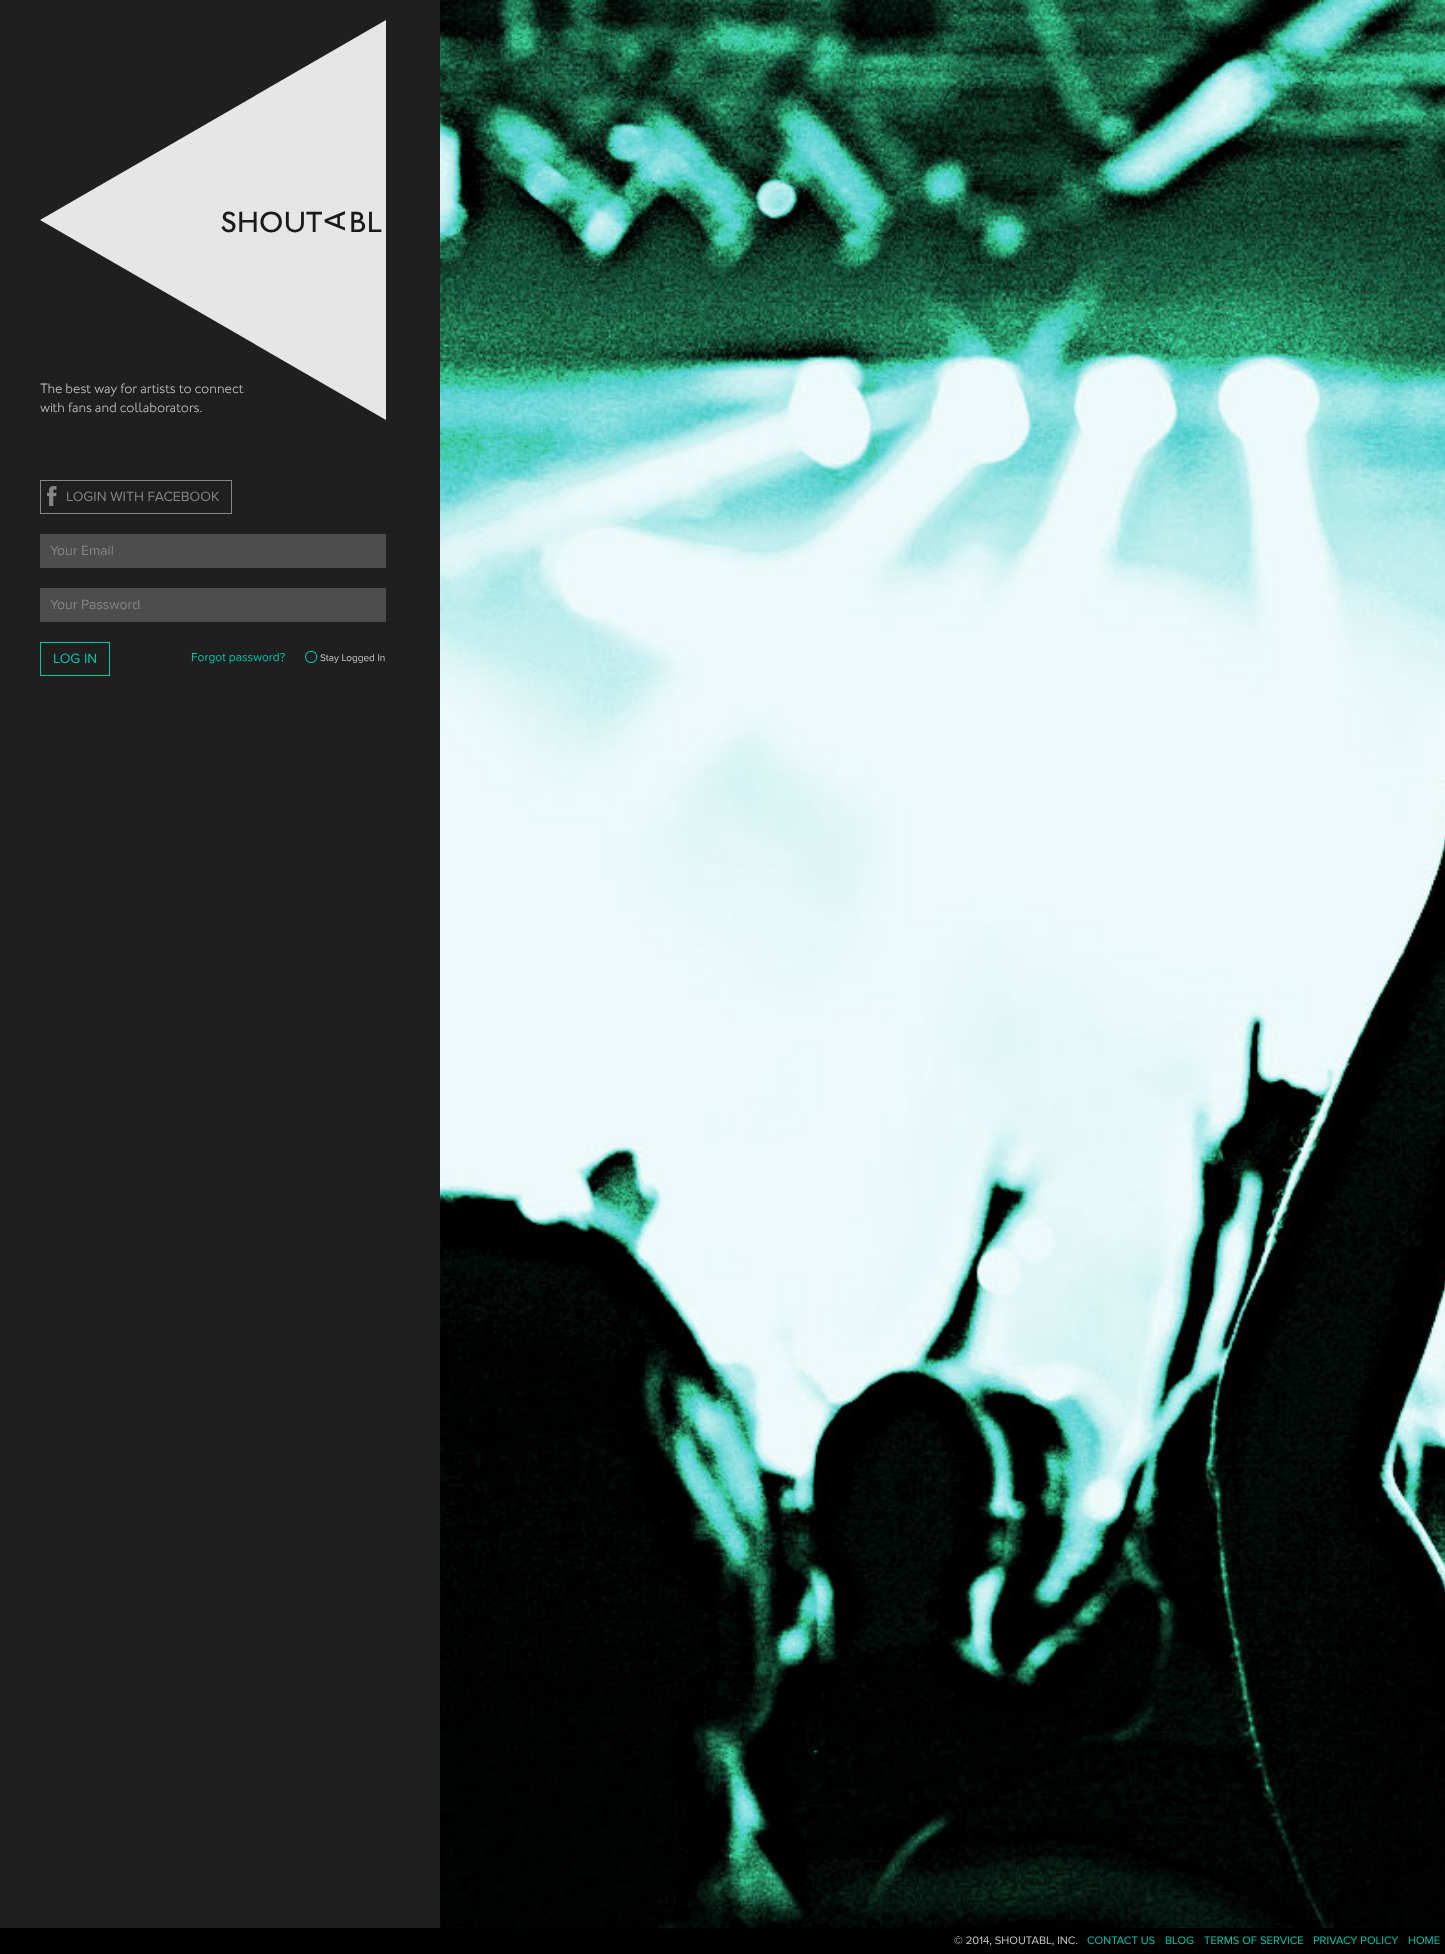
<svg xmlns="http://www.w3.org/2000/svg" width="1445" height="1954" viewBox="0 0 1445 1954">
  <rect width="100%" height="100%" fill="rgb(31,31,31)"/>
  <path d="M386 420L40 220L386 20Z" fill="rgb(230,230,230)"/>
  <g font-family="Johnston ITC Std" font-size="30" font-weight="500" fill="rgb(26,26,26)">
    <text x="220" y="232">SHOUT</text>
    <text x="345" y="231" transform="rotate(-90 345 231)">A</text>
    <text x="349" y="232">BL</text>
  </g>
  <g font-family="Johnston ITC Std" font-size="14" font-weight="300" fill="rgb(199,199,199)">
    <text>
      <tspan x="40" y="393">The best way for artists to connect</tspan>
      <tspan x="40" y="412">with fans and collaborators.</tspan>
    </text>
  </g>
  <image x="440" y="0" width="1005" height="1928" href="pic1.png"/>
  <image x="47" y="486" width="10" height="20" href="pic2.png"/>
  <rect x="40.5" y="480.5" width="191" height="33" fill="none" stroke="rgb(133,133,133)"/>
  <text x="66" y="501" font-family="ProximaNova" font-size="14" fill="rgb(133,133,133)">LOGIN WITH FACEBOOK</text>
  <rect x="40" y="534" width="346" height="34" fill="rgb(77,77,77)"/>
  <text x="50" y="555" font-family="ProximaNova" font-size="14" fill="rgb(133,133,133)">Your Email</text>
  <rect x="40" y="588" width="346" height="34" fill="rgb(77,77,77)"/>
  <text x="50" y="609" font-family="ProximaNova" font-size="14" fill="rgb(133,133,133)">Your Password</text>
  <rect x="40.5" y="642.5" width="69" height="33" fill="none" stroke="rgb(0,200,175)"/>
  <text x="53" y="663" font-family="ProximaNova" font-size="14" fill="rgb(0,200,175)">LOG IN</text>
  <text x="191" y="661" font-family="ProximaNova" font-size="12" fill="rgb(0,200,175)">Forgot password?</text>
  <image x="305" y="650" width="13" height="13" href="pic3.png"/>
  <text x="320" y="661" font-family="ProximaNova" font-size="10" fill="rgb(199,199,199)">Stay Logged In</text>
  <rect x="0" y="1928" width="1445" height="26" fill="rgb(0,0,0)"/>
  <text x="954" y="1944" font-family="ProximaNova" font-size="11.25" fill="rgb(199,199,199)">© 2014, SHOUTABL, INC.</text>
  <g font-family="ProximaNova" font-size="11.25" fill="rgb(0,200,175)">
    <text x="1087" y="1944">CONTACT US</text>
    <text x="1165" y="1944">BLOG</text>
    <text x="1204" y="1944">TERMS OF SERVICE</text>
    <text x="1313" y="1944">PRIVACY POLICY</text>
    <text x="1408" y="1944">HOME</text>
  </g>
</svg>
